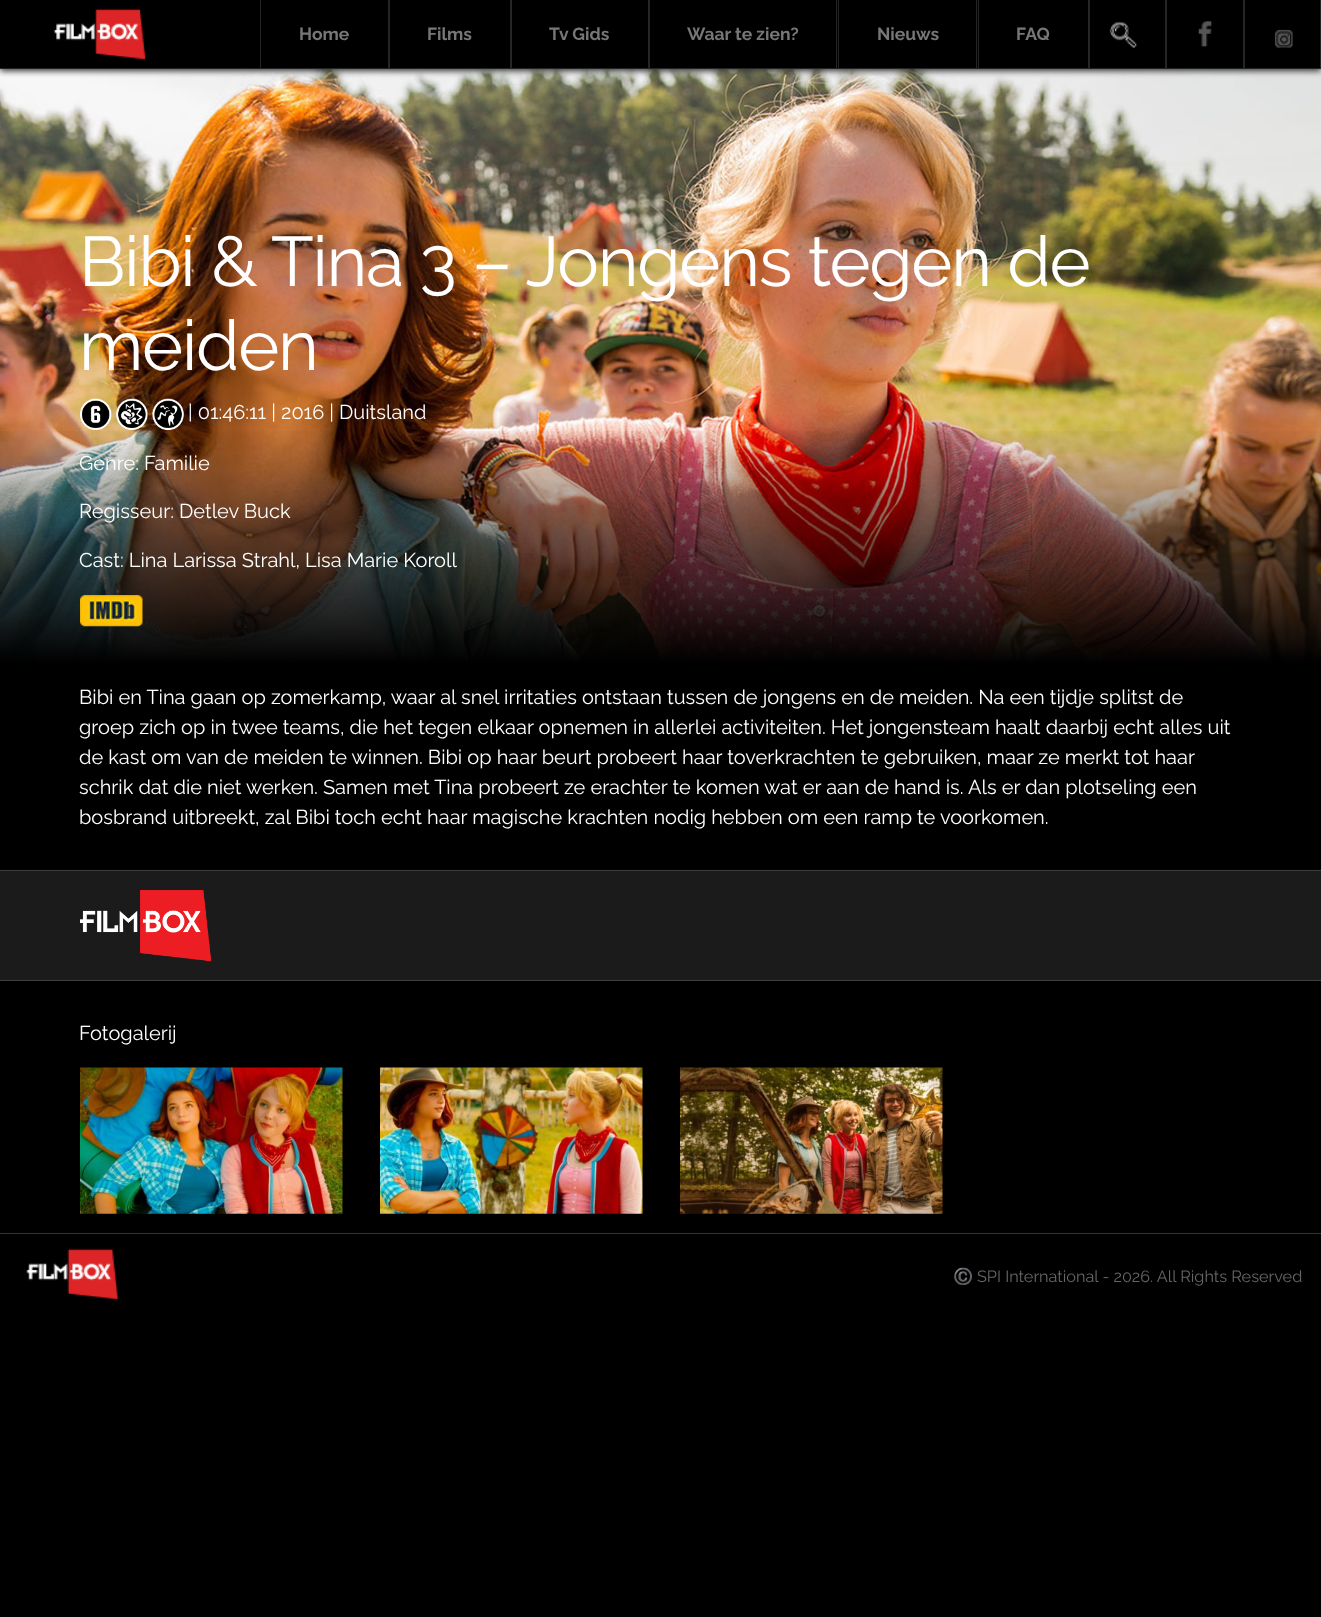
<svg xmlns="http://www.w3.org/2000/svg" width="1321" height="1617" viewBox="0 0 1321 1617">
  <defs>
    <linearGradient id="g1" gradientUnits="userSpaceOnUse" x1="661" y1="69" x2="661" y2="664"><stop offset="0.6" stop-color="rgb(0,0,0)" stop-opacity="0"/><stop offset="1" stop-color="rgb(0,0,0)"/></linearGradient>
  </defs>
  <rect width="100%" height="100%" fill="rgb(0,0,0)"/>
  <image x="0" y="69" width="1321" height="594" href="pic5.png"/>
  <rect x="0" y="3" width="1321" height="68" fill="rgb(51,51,51)" filter="blur(3px)"/>
  <rect x="0" y="0" width="1320" height="68" fill="rgb(0,0,0)"/>
  <rect x="0" y="68" width="1321" height="1" fill="rgb(37,37,37)"/>
  <image x="53" y="8" width="94" height="53" href="pic1.png"/>
  <rect x="388" y="0" width="2" height="69" fill="rgb(37,37,37)"/>
  <rect x="260" y="0" width="1" height="69" fill="rgb(37,37,37)"/>
  <text x="299" y="40" font-family="Raleway" font-size="17.5" font-weight="bold" fill="rgb(119,119,119)">Home</text>
  <rect x="510" y="0" width="2" height="69" fill="rgb(37,37,37)"/>
  <text x="427" y="40" font-family="Raleway" font-size="17.5" font-weight="bold" fill="rgb(119,119,119)">Films</text>
  <rect x="648" y="0" width="2" height="69" fill="rgb(37,37,37)"/>
  <text x="549" y="40" font-family="Raleway" font-size="17.5" font-weight="bold" fill="rgb(119,119,119)">Tv Gids</text>
  <rect x="836" y="0" width="1" height="69" fill="rgb(37,37,37)"/>
  <text x="687" y="40" font-family="Raleway" font-size="17.5" font-weight="bold" fill="rgb(119,119,119)">Waar te zien?</text>
  <rect x="976" y="0" width="1" height="69" fill="rgb(37,37,37)"/>
  <rect x="838" y="0" width="1" height="69" fill="rgb(37,37,37)"/>
  <text x="877" y="40" font-family="Raleway" font-size="17.5" font-weight="bold" fill="rgb(119,119,119)">Nieuws</text>
  <rect x="1088" y="0" width="2" height="69" fill="rgb(37,37,37)"/>
  <rect x="978" y="0" width="1" height="69" fill="rgb(37,37,37)"/>
  <text x="1016" y="40" font-family="Raleway" font-size="17.5" font-weight="bold" fill="rgb(119,119,119)">FAQ</text>
  <image x="1109" y="22" width="28" height="26" href="pic2.png"/>
  <rect x="1165" y="0" width="2" height="69" fill="rgb(37,37,37)"/>
  <image x="1198" y="21" width="14" height="26" href="pic3.png"/>
  <rect x="1243" y="0" width="2" height="69" fill="rgb(37,37,37)"/>
  <image x="1274" y="29" width="19" height="19" href="pic4.png"/>
  <rect x="1320" y="0" width="1" height="69" fill="rgb(37,37,37)"/>
  <g font-family="Raleway" font-size="70" letter-spacing="-1.25" fill="rgb(255,255,255)">
    <text>
      <tspan x="79" y="286">Bibi &amp; Tina 3 – Jongens tegen de</tspan>
      <tspan x="79" y="370">meiden</tspan>
    </text>
  </g>
  <image x="80" y="398" width="32" height="32" href="pic6.png"/>
  <image x="116" y="398" width="32" height="32" href="pic7.png"/>
  <image x="152" y="398" width="32" height="32" href="pic8.png"/>
  <text x="188" y="419" font-family="Raleway" font-size="20" fill="rgb(255,255,255)">| 01:46:11 | 2016 | Duitsland</text>
  <rect x="0" y="431" width="1321" height="232" fill="url(#g1)"/>
  <g font-family="Raleway" font-size="20" fill="rgb(255,255,255)">
    <text x="79" y="470">Genre: Familie</text>
    <text x="79" y="518">Regisseur: Detlev Buck</text>
    <text x="79" y="567">Cast: Lina Larissa Strahl, Lisa Marie Koroll</text>
  </g>
  <image x="80" y="595" width="63" height="32" href="pic9.png"/>
  <g font-family="Raleway" font-size="20" fill="rgb(255,255,255)">
    <text>
      <tspan x="79" y="704">Bibi en Tina gaan op zomerkamp, waar al snel irritaties ontstaan tussen de jongens en de meiden. Na een tijdje splitst de</tspan>
      <tspan x="79" y="734">groep zich op in twee teams, die het tegen elkaar opnemen in allerlei activiteiten. Het jongensteam haalt daarbij echt alles uit</tspan>
      <tspan x="79" y="764">de kast om van de meiden te winnen. Bibi op haar beurt probeert haar toverkrachten te gebruiken, maar ze merkt tot haar</tspan>
      <tspan x="79" y="794">schrik dat die niet werken. Samen met Tina probeert ze erachter te komen wat er aan de hand is. Als er dan plotseling een</tspan>
      <tspan x="79" y="824">bosbrand uitbreekt, zal Bibi toch echt haar magische krachten nodig hebben om een ramp te voorkomen.</tspan>
    </text>
  </g>
  <rect x="0" y="871" width="1321" height="109" fill="rgb(27,27,27)"/>
  <rect x="0" y="870" width="1321" height="1" fill="rgb(62,62,62)"/>
  <rect x="0" y="980" width="1321" height="1" fill="rgb(62,62,62)"/>
  <image x="80" y="890" width="132" height="72" href="pic10.png"/>
  <text x="79" y="1040" font-family="Raleway" font-size="20" fill="rgb(255,255,255)">Fotogalerij</text>
  <image x="80" y="1067" width="263" height="147" href="pic11.png"/>
  <image x="380" y="1067" width="263" height="147" href="pic12.png"/>
  <image x="680" y="1067" width="263" height="147" href="pic13.png"/>
  <rect x="0" y="1233" width="1321" height="1" fill="rgb(51,51,51)"/>
  <image x="26" y="1248" width="93" height="53" href="pic14.png"/>
  <text x="953" y="1282" font-family="Noto Color Emoji" font-size="16.25" fill="rgb(102,102,102)">©️</text>
  <text x="977" y="1282" font-family="Raleway" font-size="16.25" fill="rgb(102,102,102)">SPI International - 2026. All Rights Reserved</text>
</svg>
